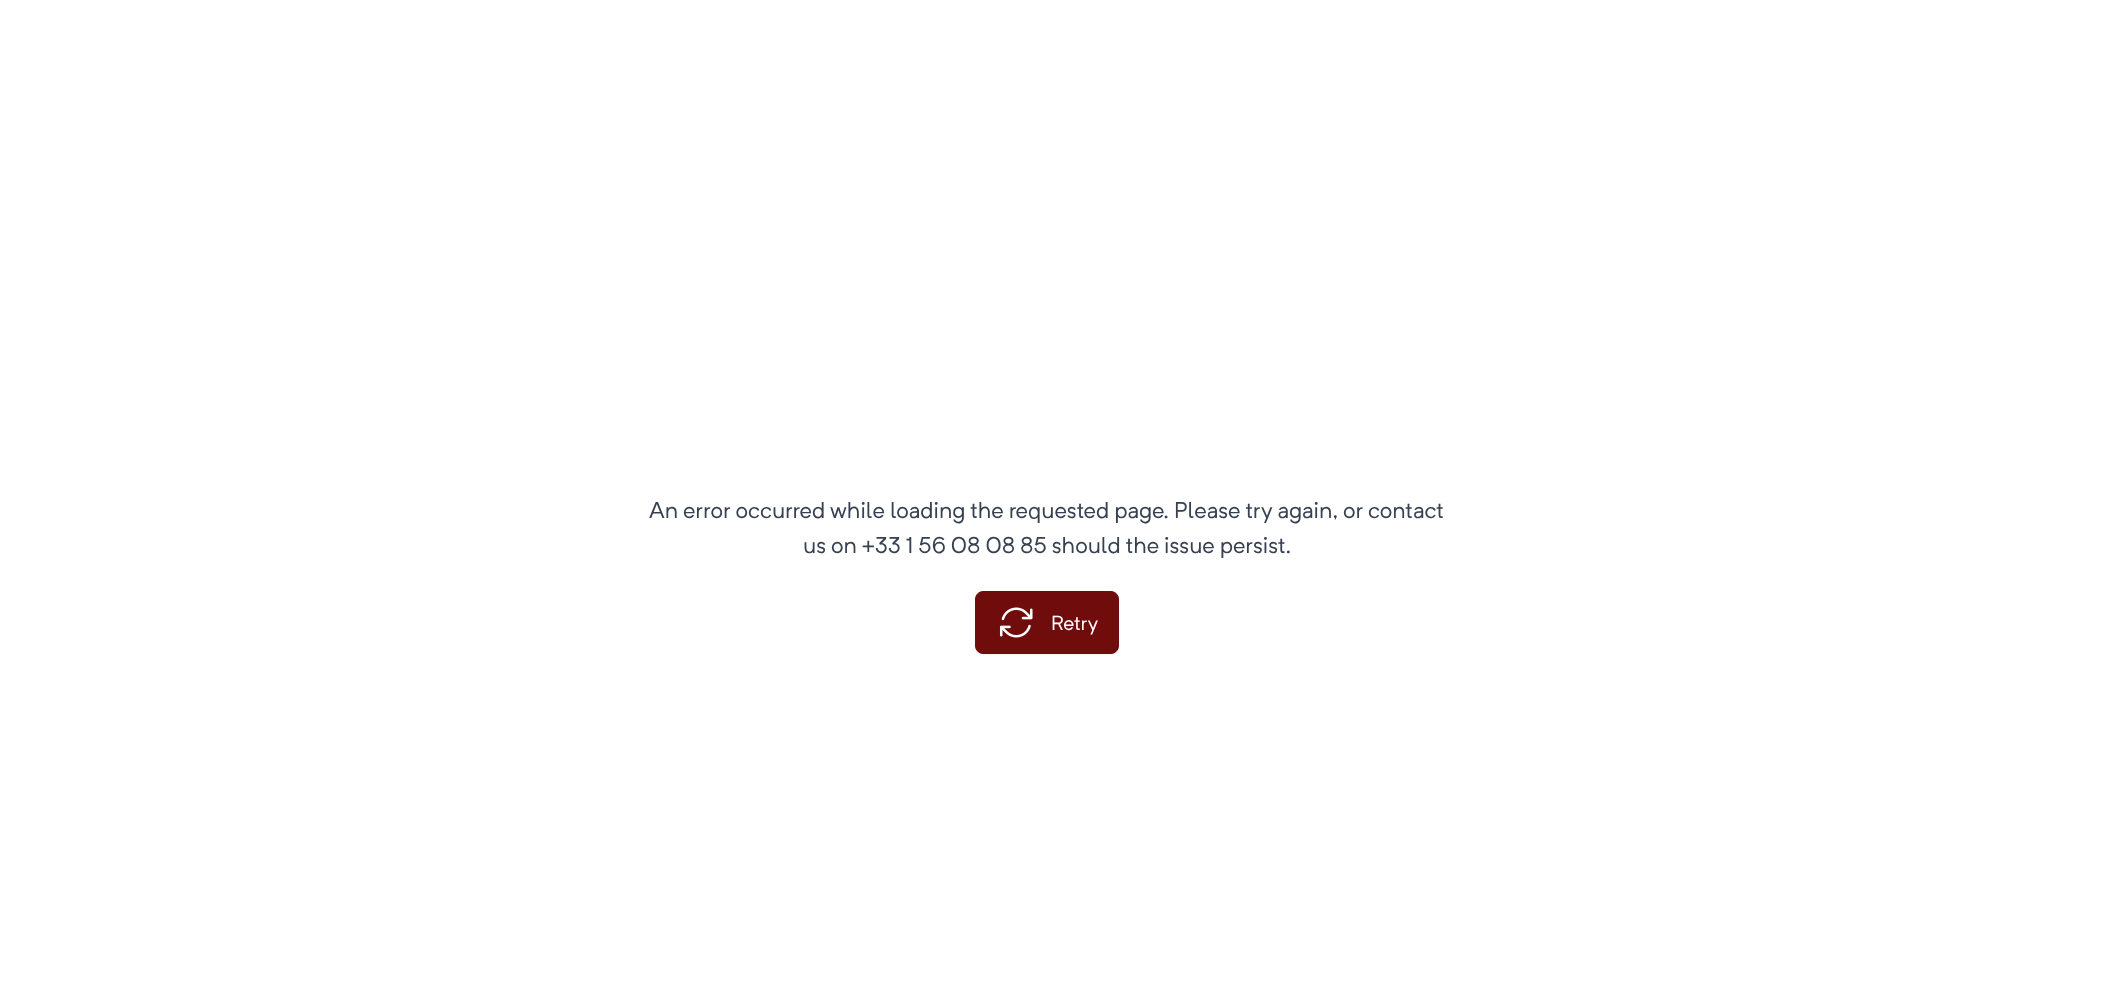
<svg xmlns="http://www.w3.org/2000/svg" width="2112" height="990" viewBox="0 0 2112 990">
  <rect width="100%" height="100%" fill="rgb(255,255,255)"/>
  <g font-family="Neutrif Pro" font-size="22.5" fill="rgb(55,65,81)">
    <text x="649" y="518">An error occurred while loading the requested page. Please try again, or contact</text>
    <text x="803" y="553">us on +33 1 56 08 08 85 should the issue persist.</text>
  </g>
  <rect x="975" y="593" width="144" height="62" rx="8" fill="rgba(0,0,0,0.05)" filter="blur(1px)"/>
  <rect x="975.5" y="591.5" width="143" height="62" rx="7.5" fill="rgb(112,12,12)" stroke="rgb(112,12,12)"/>
  <image x="999" y="607" width="34" height="31" href="pic1.png"/>
  <text x="1051" y="630" font-family="Neutrif Pro" font-size="20" fill="rgb(255,255,255)">Retry</text>
</svg>
